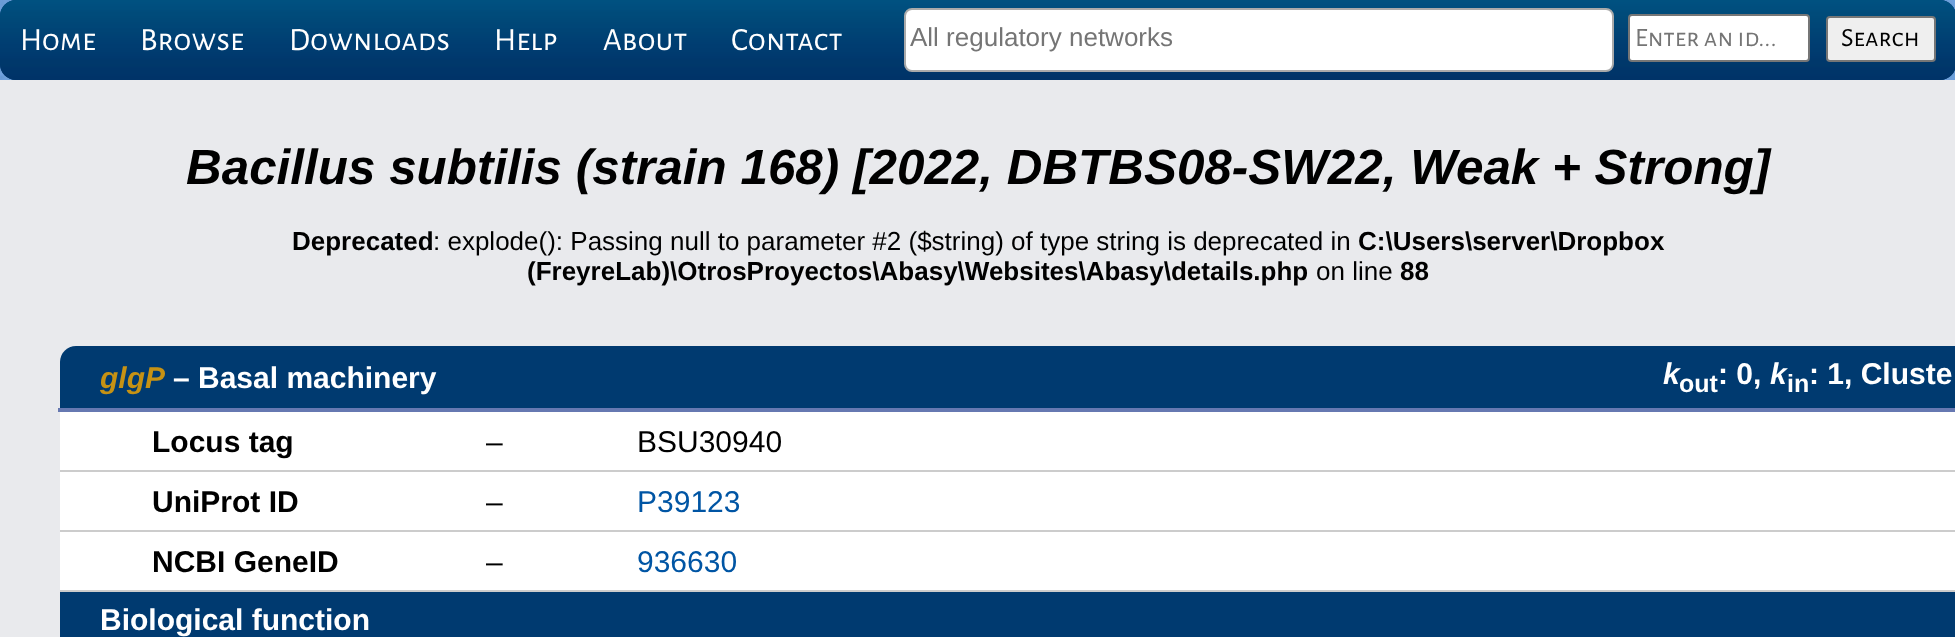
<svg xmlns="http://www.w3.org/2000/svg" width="1955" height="637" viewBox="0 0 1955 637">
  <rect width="100%" height="100%" fill="rgb(233,234,237)"/>
  <image x="0" y="0" width="1955" height="80" href="pic1.png"/>
  <rect x="0" y="0" width="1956" height="80" rx="16" fill="rgb(0,58,112)"/>
  <image x="0" y="0" width="1955" height="80" href="pic2.png"/>
  <g font-family="Alegreya Sans SC" font-size="32.5" fill="rgb(255,255,255)">
    <text x="20" y="50">Home</text>
    <text x="140" y="50">Browse</text>
    <text x="289" y="50">Downloads</text>
    <text x="494" y="50">Help</text>
    <text x="603" y="50">About</text>
    <text x="731" y="50">Contact</text>
  </g>
  <rect x="905" y="9" width="708" height="62" rx="7" fill="rgb(255,255,255)" stroke="rgb(170,170,170)" stroke-width="2"/>
  <text x="910" y="46" font-family="Liberation Sans" font-size="26" fill="rgb(117,117,117)">All regulatory networks</text>
  <rect x="1629" y="15" width="180" height="46" rx="3" fill="rgb(255,255,255)" stroke="rgb(118,118,118)" stroke-width="2"/>
  <text x="1635" y="46" font-family="Alegreya Sans SC" font-size="26.5" fill="rgb(117,117,117)">Enter an id...</text>
  <rect x="1827" y="17" width="108" height="44" rx="3" fill="rgb(239,239,239)" stroke="rgb(118,118,118)" stroke-width="2"/>
  <text x="1841" y="46" font-family="Alegreya Sans SC" font-size="26.5" fill="rgb(0,0,0)">Search</text>
  <text x="186" y="184" font-family="Liberation Sans" font-size="49.4" font-weight="bold" font-style="italic" fill="rgb(0,0,0)">Bacillus subtilis (strain 168) [2022, DBTBS08-SW22, Weak + Strong]</text>
  <text x="292" y="250" font-family="Liberation Sans" font-size="26" font-weight="bold" fill="rgb(0,0,0)">Deprecated</text>
  <text x="433" y="250" font-family="Liberation Sans" font-size="26" fill="rgb(0,0,0)">: explode(): Passing null to parameter #2 ($string) of type string is deprecated in</text>
  <g font-family="Liberation Sans" font-size="26" font-weight="bold" fill="rgb(0,0,0)">
    <text x="1358" y="250">C:\Users\server\Dropbox</text>
    <text x="527" y="280">(FreyreLab)\OtrosProyectos\Abasy\Websites\Abasy\details.php</text>
  </g>
  <text x="1316" y="280" font-family="Liberation Sans" font-size="26" fill="rgb(0,0,0)">on line</text>
  <text x="1400" y="280" font-family="Liberation Sans" font-size="26" font-weight="bold" fill="rgb(0,0,0)">88</text>
  <rect x="60" y="346" width="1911" height="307" rx="16" fill="rgb(255,255,255)"/>
  <path d="M76 346H622V410H60V362C60 353 67 346 76 346Z" fill="rgb(0,58,112)"/>
  <text x="100" y="388" font-family="Liberation Sans" font-size="30" font-weight="bold" font-style="italic" fill="rgb(198,146,20)">glgP</text>
  <text x="173" y="388" font-family="Liberation Sans" font-size="30" font-weight="bold" fill="rgb(255,255,255)">– Basal machinery</text>
  <rect x="622" y="346" width="1333" height="62" fill="rgb(0,58,112)"/>
  <rect x="58" y="408" width="1897" height="4" fill="rgb(102,120,177)"/>
  <text x="1663" y="384" font-family="Liberation Sans" font-size="30" font-weight="bold" font-style="italic" fill="rgb(255,255,255)">k</text>
  <text x="1679" y="392" font-family="Liberation Sans" font-size="25" font-weight="bold" fill="rgb(255,255,255)">out</text>
  <text x="1718" y="384" font-family="Liberation Sans" font-size="30" font-weight="bold" fill="rgb(255,255,255)">: 0,</text>
  <text x="1770" y="384" font-family="Liberation Sans" font-size="30" font-weight="bold" font-style="italic" fill="rgb(255,255,255)">k</text>
  <text x="1787" y="392" font-family="Liberation Sans" font-size="25" font-weight="bold" fill="rgb(255,255,255)">in</text>
  <text x="1809" y="384" font-family="Liberation Sans" font-size="30" font-weight="bold" fill="rgb(255,255,255)">: 1, Cluste</text>
  <text x="152" y="452" font-family="Liberation Sans" font-size="30" font-weight="bold" fill="rgb(0,0,0)">Locus tag</text>
  <text x="486" y="452" font-family="Liberation Sans" font-size="30" fill="rgb(0,0,0)">–</text>
  <rect x="60" y="470" width="1895" height="2" fill="rgb(204,204,204)"/>
  <text x="637" y="452" font-family="Liberation Sans" font-size="30" fill="rgb(0,0,0)">BSU30940</text>
  <text x="152" y="512" font-family="Liberation Sans" font-size="30" font-weight="bold" fill="rgb(0,0,0)">UniProt ID</text>
  <text x="486" y="512" font-family="Liberation Sans" font-size="30" fill="rgb(0,0,0)">–</text>
  <rect x="60" y="530" width="1895" height="2" fill="rgb(204,204,204)"/>
  <text x="637" y="512" font-family="Liberation Sans" font-size="30" fill="rgb(0,85,164)">P39123</text>
  <text x="152" y="572" font-family="Liberation Sans" font-size="30" font-weight="bold" fill="rgb(0,0,0)">NCBI GeneID</text>
  <text x="486" y="572" font-family="Liberation Sans" font-size="30" fill="rgb(0,0,0)">–</text>
  <rect x="60" y="590" width="1895" height="2" fill="rgb(204,204,204)"/>
  <text x="637" y="572" font-family="Liberation Sans" font-size="30" fill="rgb(0,85,164)">936630</text>
  <rect x="60" y="592" width="1895" height="45" fill="rgb(0,58,112)"/>
  <text x="100" y="630" font-family="Liberation Sans" font-size="30" font-weight="bold" fill="rgb(255,255,255)">Biological function</text>
</svg>
